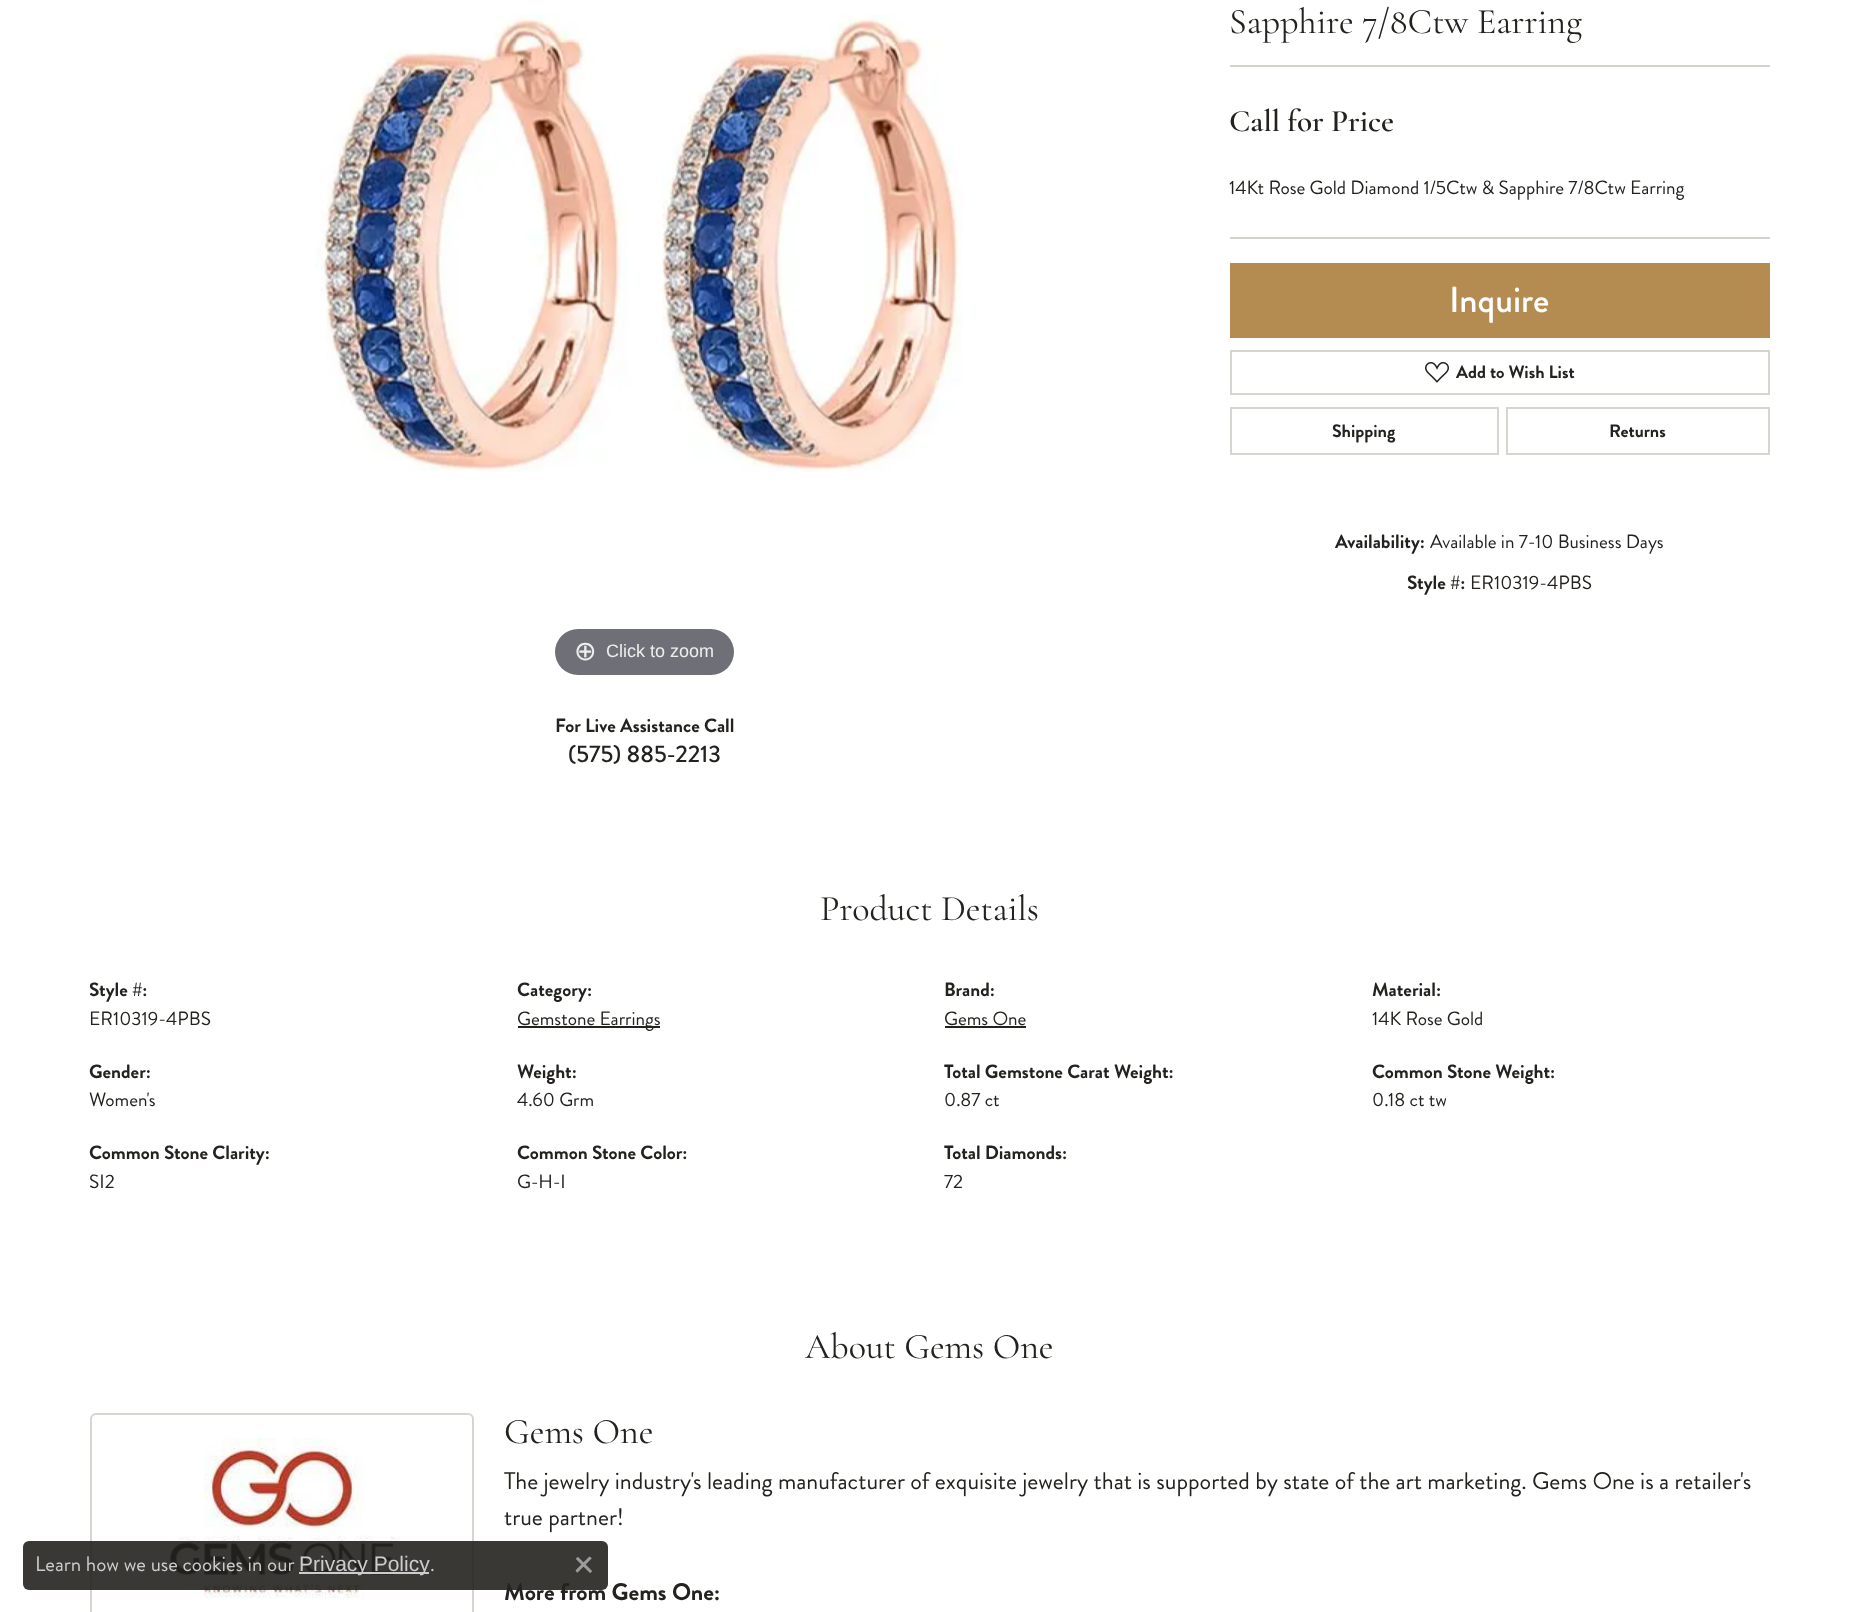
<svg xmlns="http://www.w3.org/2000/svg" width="1858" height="1612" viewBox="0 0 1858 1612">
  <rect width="100%" height="100%" fill="rgb(255,255,255)"/>
  <text x="1229" y="33" font-family="Cormorant Garamond" font-size="36" fill="rgb(36,34,30)">Sapphire 7/8Ctw Earring</text>
  <rect x="1230" y="65" width="540" height="2" fill="rgb(213,210,206)"/>
  <text x="1229" y="131" font-family="Cormorant Garamond" font-size="31.25" font-weight="600" fill="rgb(36,34,30)">Call for Price</text>
  <text x="1229" y="194" font-family="Brandon Grotesque" font-size="19.2" fill="rgb(36,34,30)">14Kt Rose Gold Diamond 1/5Ctw &amp; Sapphire 7/8Ctw Earring</text>
  <rect x="1230" y="237" width="540" height="2" fill="rgb(213,210,206)"/>
  <rect x="1230" y="263" width="540" height="75" fill="rgb(180,140,82)"/>
  <text x="1449" y="312" font-family="Brandon Grotesque" font-size="36" font-weight="500" fill="rgb(255,255,255)">Inquire</text>
  <rect x="1231" y="351" width="538" height="43" fill="none" stroke="rgb(216,213,209)" stroke-width="2"/>
  <image x="1425" y="362" width="24" height="21" href="pic1.png"/>
  <text x="1456" y="378" font-family="Brandon Grotesque" font-size="18" font-weight="bold" fill="rgb(36,34,30)">Add to Wish List</text>
  <rect x="1231" y="408" width="267" height="46" fill="none" stroke="rgb(216,213,209)" stroke-width="2"/>
  <text x="1332" y="437" font-family="Brandon Grotesque" font-size="18" font-weight="bold" fill="rgb(36,34,30)">Shipping</text>
  <rect x="1507" y="408" width="262" height="46" fill="none" stroke="rgb(216,213,209)" stroke-width="2"/>
  <text x="1609" y="437" font-family="Brandon Grotesque" font-size="18" font-weight="bold" fill="rgb(36,34,30)">Returns</text>
  <text x="1335" y="548" font-family="Brandon Grotesque" font-size="19.2" font-weight="bold" fill="rgb(36,34,30)">Availability:</text>
  <text x="1430" y="548" font-family="Brandon Grotesque" font-size="19.2" fill="rgb(36,34,30)">Available in 7-10 Business Days</text>
  <text x="1407" y="589" font-family="Brandon Grotesque" font-size="19.2" font-weight="bold" fill="rgb(36,34,30)">Style #:</text>
  <text x="1470" y="589" font-family="Brandon Grotesque" font-size="19.2" fill="rgb(36,34,30)">ER10319-4PBS</text>
  <image x="315" y="14" width="648" height="458" href="pic2.png"/>
  <rect x="555" y="629" width="179" height="46" rx="23" fill="rgb(111,112,119)"/>
  <text x="574" y="660" font-family="DejaVu Sans" font-size="27" fill="rgb(238,238,238)">⊕</text>
  <text x="606" y="657" font-family="Liberation Sans" font-size="18" fill="rgb(238,238,238)">Click to zoom</text>
  <text x="555" y="732" font-family="Brandon Grotesque" font-size="19.2" font-weight="bold" fill="rgb(36,34,30)">For Live Assistance Call</text>
  <text x="568" y="762" font-family="Brandon Grotesque" font-size="24" font-weight="500" fill="rgb(36,34,30)">(575) 885-2213</text>
  <text x="820" y="920" font-family="Cormorant Garamond" font-size="36" fill="rgb(36,34,30)">Product Details</text>
  <text x="89" y="996" font-family="Brandon Grotesque" font-size="19.2" font-weight="bold" fill="rgb(36,34,30)">Style #:</text>
  <text x="89" y="1025" font-family="Brandon Grotesque" font-size="19.2" fill="rgb(36,34,30)">ER10319-4PBS</text>
  <text x="89" y="1078" font-family="Brandon Grotesque" font-size="19.2" font-weight="bold" fill="rgb(36,34,30)">Gender:</text>
  <text x="89" y="1106" font-family="Brandon Grotesque" font-size="19.2" fill="rgb(36,34,30)">Women's</text>
  <text x="89" y="1159" font-family="Brandon Grotesque" font-size="19.2" font-weight="bold" fill="rgb(36,34,30)">Common Stone Clarity:</text>
  <text x="89" y="1188" font-family="Brandon Grotesque" font-size="19.2" fill="rgb(36,34,30)">SI2</text>
  <text x="517" y="996" font-family="Brandon Grotesque" font-size="19.2" font-weight="bold" fill="rgb(36,34,30)">Category:</text>
  <rect x="518" y="1026" width="142" height="2" fill="rgb(36,34,30)"/>
  <text x="517" y="1025" font-family="Brandon Grotesque" font-size="19.2" fill="rgb(36,34,30)">Gemstone Earrings</text>
  <text x="517" y="1078" font-family="Brandon Grotesque" font-size="19.2" font-weight="bold" fill="rgb(36,34,30)">Weight:</text>
  <text x="517" y="1106" font-family="Brandon Grotesque" font-size="19.2" fill="rgb(36,34,30)">4.60 Grm</text>
  <text x="517" y="1159" font-family="Brandon Grotesque" font-size="19.2" font-weight="bold" fill="rgb(36,34,30)">Common Stone Color:</text>
  <text x="517" y="1188" font-family="Brandon Grotesque" font-size="19.2" fill="rgb(36,34,30)">G-H-I</text>
  <text x="944" y="996" font-family="Brandon Grotesque" font-size="19.2" font-weight="bold" fill="rgb(36,34,30)">Brand:</text>
  <text x="944" y="1025" font-family="Brandon Grotesque" font-size="19.2" fill="rgb(36,34,30)">Gems One</text>
  <rect x="945" y="1026" width="81" height="2" fill="rgb(36,34,30)"/>
  <text x="944" y="1078" font-family="Brandon Grotesque" font-size="19.2" font-weight="bold" fill="rgb(36,34,30)">Total Gemstone Carat Weight:</text>
  <text x="944" y="1106" font-family="Brandon Grotesque" font-size="19.2" fill="rgb(36,34,30)">0.87 ct</text>
  <text x="944" y="1159" font-family="Brandon Grotesque" font-size="19.2" font-weight="bold" fill="rgb(36,34,30)">Total Diamonds:</text>
  <text x="944" y="1188" font-family="Brandon Grotesque" font-size="19.2" fill="rgb(36,34,30)">72</text>
  <text x="1372" y="996" font-family="Brandon Grotesque" font-size="19.2" font-weight="bold" fill="rgb(36,34,30)">Material:</text>
  <text x="1372" y="1025" font-family="Brandon Grotesque" font-size="19.2" fill="rgb(36,34,30)">14K Rose Gold</text>
  <text x="1372" y="1078" font-family="Brandon Grotesque" font-size="19.2" font-weight="bold" fill="rgb(36,34,30)">Common Stone Weight:</text>
  <text x="1372" y="1106" font-family="Brandon Grotesque" font-size="19.2" fill="rgb(36,34,30)">0.18 ct tw</text>
  <text x="805" y="1358" font-family="Cormorant Garamond" font-size="36" fill="rgb(36,34,30)">About Gems One</text>
  <rect x="91" y="1414" width="382" height="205" rx="5" fill="none" stroke="rgb(216,213,209)" stroke-width="2"/>
  <image x="169" y="1438" width="231" height="160" href="pic3.png"/>
  <text x="504" y="1443" font-family="Cormorant Garamond" font-size="36" fill="rgb(36,34,30)">Gems One</text>
  <g font-family="Brandon Grotesque" font-size="24" fill="rgb(36,34,30)">
    <text>
      <tspan x="504" y="1489">The jewelry industry's leading manufacturer of exquisite jewelry that is supported by state of the art marketing. Gems One is a retailer's</tspan>
      <tspan x="504" y="1525">true partner!</tspan>
    </text>
  </g>
  <text x="504" y="1600" font-family="Brandon Grotesque" font-size="24" font-weight="bold" fill="rgb(36,34,30)">More from Gems One:</text>
  <rect x="23" y="1541" width="585" height="49" rx="6" fill="rgba(36,34,30,0.9)"/>
  <text x="35" y="1571" font-family="Brandon Grotesque" font-size="21" fill="rgb(204,204,204)">Learn how we use cookies in our</text>
  <rect x="299" y="1572" width="130" height="2" fill="rgb(204,204,204)"/>
  <text x="299" y="1571" font-family="Liberation Sans" font-size="21" fill="rgb(204,204,204)">Privacy Policy</text>
  <text x="430" y="1571" font-family="Brandon Grotesque" font-size="21" fill="rgb(204,204,204)">.</text>
  <image x="575" y="1556" width="17" height="17" href="pic4.png"/>
</svg>
